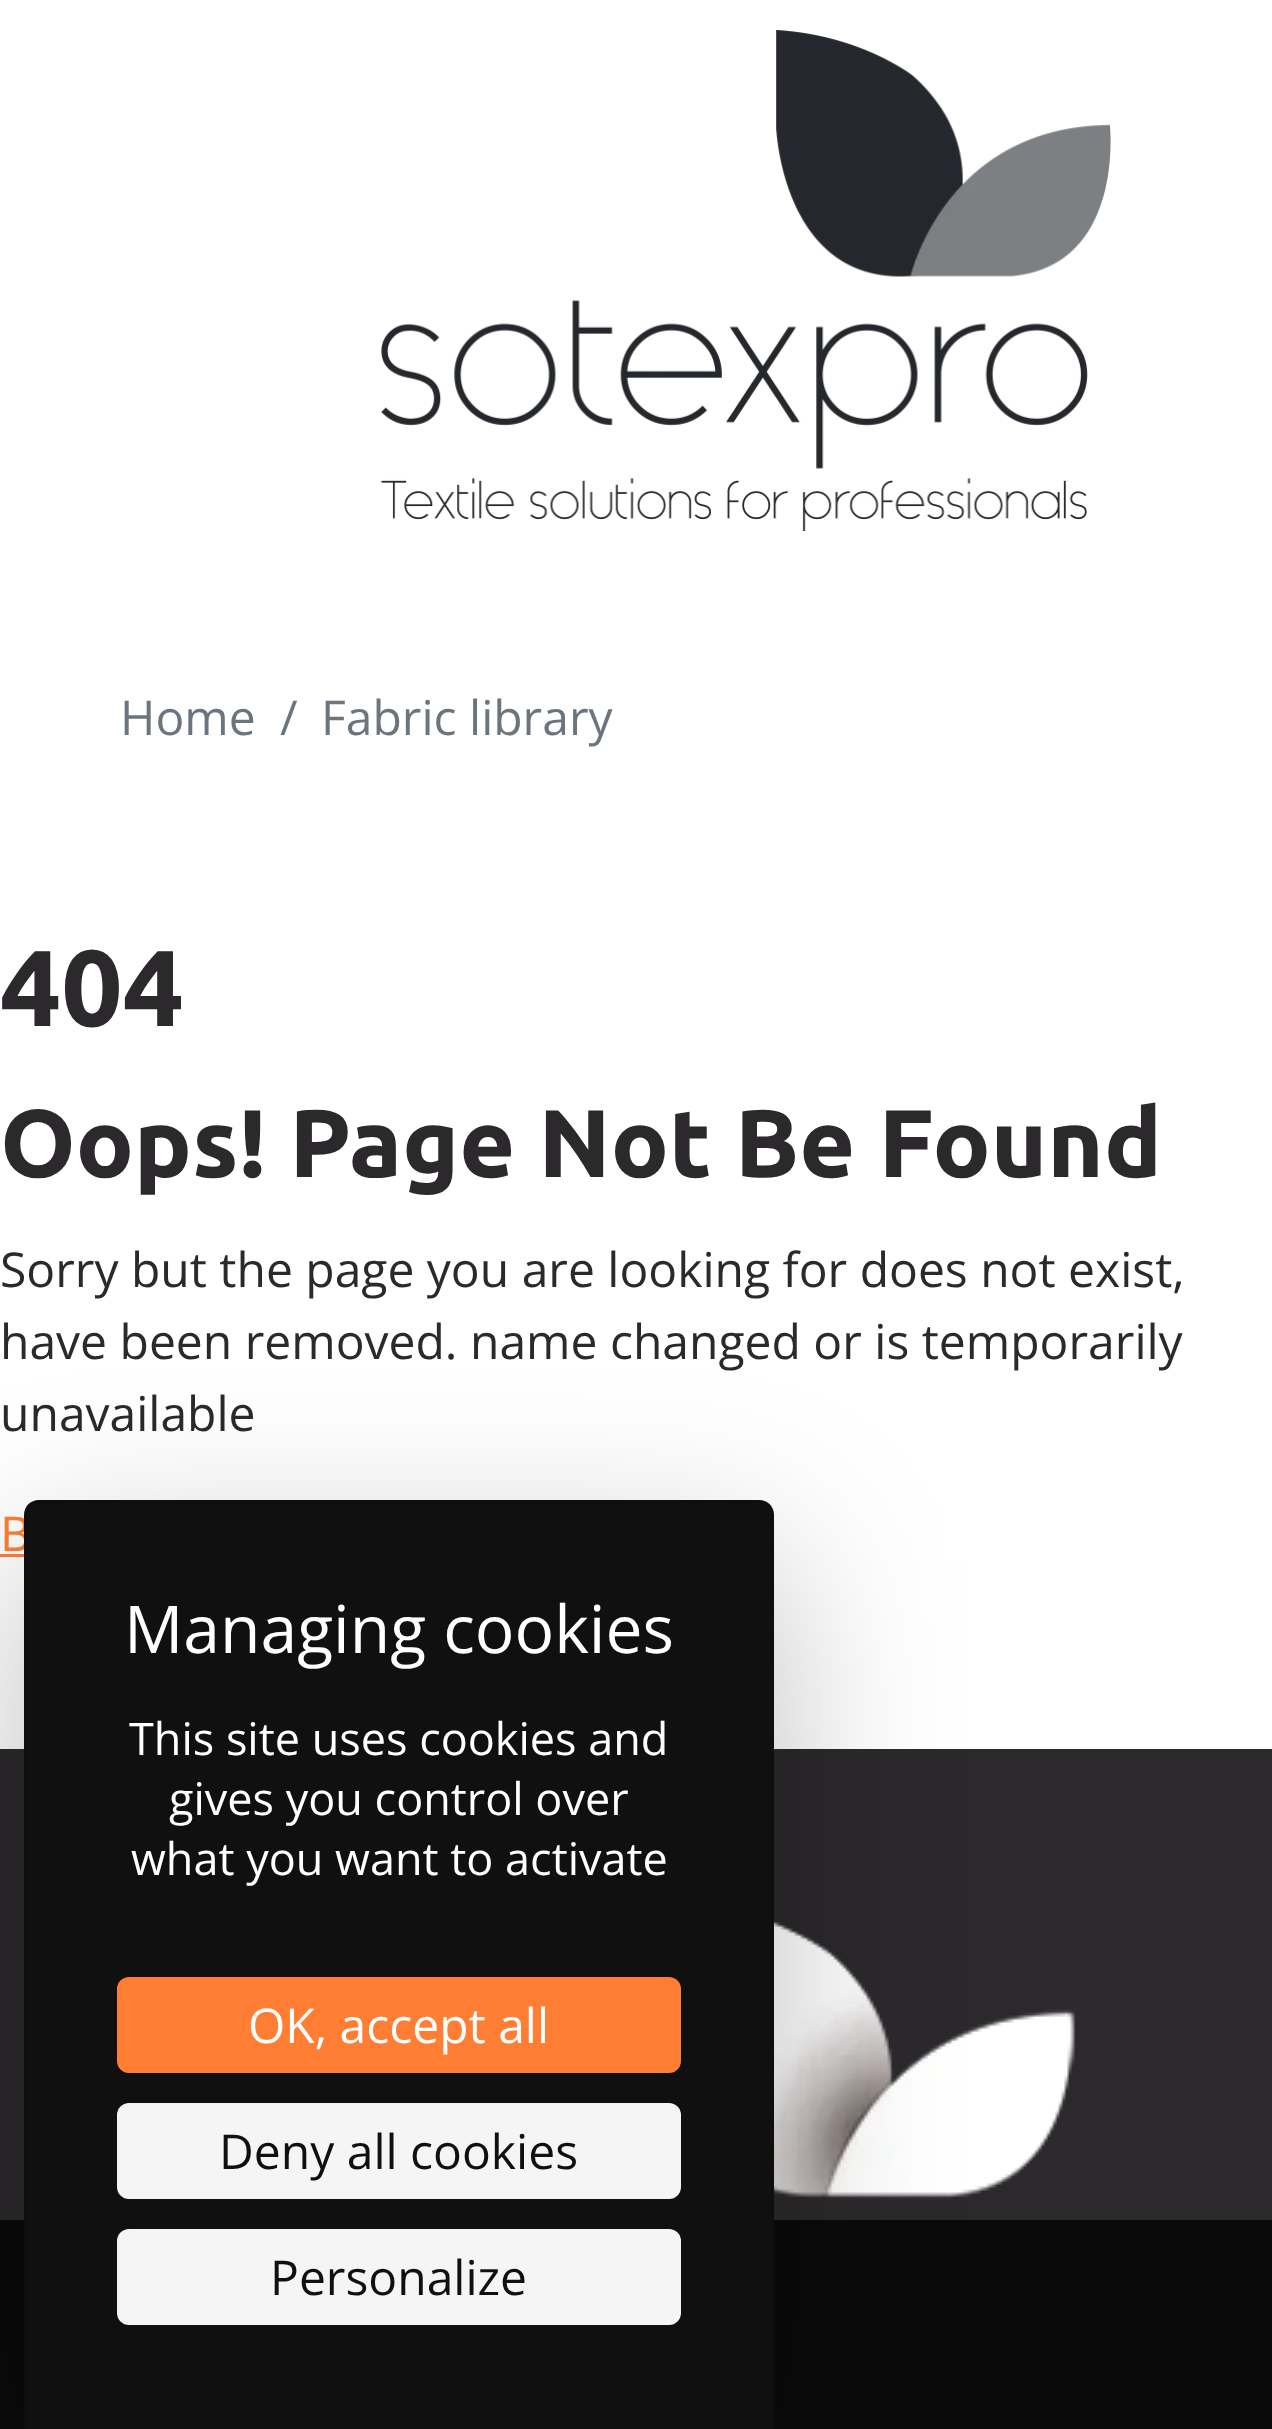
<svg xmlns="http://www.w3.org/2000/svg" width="1272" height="2429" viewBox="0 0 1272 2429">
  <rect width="100%" height="100%" fill="rgb(255,255,255)"/>
  <image x="381" y="30" width="730" height="501" href="pic1.png"/>
  <g font-family="Open Sans" font-size="48" fill="rgb(108,117,125)">
    <text x="120" y="735">Home</text>
    <text x="280" y="735">/</text>
    <text x="321" y="735">Fabric library</text>
  </g>
  <text x="0" y="1026" font-family="Ubuntu" font-size="108" font-weight="bold" fill="rgb(44,41,45)">404</text>
  <text x="0" y="1177" font-family="Ubuntu" font-size="96" font-weight="bold" fill="rgb(44,41,45)">Oops! Page Not Be Found</text>
  <g font-family="Open Sans" font-size="48" fill="rgb(44,41,45)">
    <text>
      <tspan x="0" y="1287">Sorry but the page you are looking for does not exist,</tspan>
      <tspan x="0" y="1359">have been removed. name changed or is temporarily</tspan>
      <tspan x="0" y="1431">unavailable</tspan>
    </text>
  </g>
  <text x="0" y="1551" font-family="Open Sans" font-size="48" fill="rgb(255,128,52)">B</text>
  <rect x="0" y="1554" width="24" height="3" fill="rgb(255,128,52)"/>
  <rect x="0" y="1749" width="1272" height="471" fill="rgb(44,41,45)"/>
  <image x="774" y="1921" width="301" height="278" href="pic2.png"/>
  <rect x="0" y="2220" width="1272" height="209" fill="rgb(10,10,10)"/>
  <rect x="24" y="1560" width="750" height="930" rx="15" fill="rgba(0,0,0,0.25)" filter="blur(90px)"/>
  <path d="M39 1500H759C767.5 1500 774 1506.5 774 1515V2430H24V1515C24 1506.5 30.5 1500 39 1500Z" fill="rgb(16,16,16)"/>
  <path d="M39 1500H759C767 1500 774 1507 774 1515V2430H24V1515C24 1507 31 1500 39 1500ZM39 1503H759C766 1503 771 1508 771 1515V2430H27V1515C27 1508 32 1503 39 1503Z" fill="rgba(0,0,0,0.08)" fill-rule="evenodd"/>
  <text x="124" y="1653" font-family="Open Sans" font-size="66" fill="rgb(255,255,255)">Managing cookies</text>
  <g font-family="Open Sans" font-size="45" fill="rgb(255,255,255)">
    <text x="129" y="1755">This site uses cookies and</text>
    <text x="169" y="1815">gives you control over</text>
    <text x="131" y="1875">what you want to activate</text>
  </g>
  <rect x="117" y="1977" width="564" height="96" rx="12" fill="rgb(255,126,52)"/>
  <text x="248" y="2043" font-family="Open Sans" font-size="48" fill="rgb(255,255,255)">OK, accept all</text>
  <rect x="117" y="2103" width="564" height="96" rx="12" fill="rgb(245,245,245)"/>
  <text x="219" y="2169" font-family="Open Sans" font-size="48" fill="rgb(16,16,16)">Deny all cookies</text>
  <rect x="117" y="2229" width="564" height="96" rx="12" fill="rgb(245,245,245)"/>
  <text x="270" y="2295" font-family="Open Sans" font-size="48" fill="rgb(16,16,16)">Personalize</text>
</svg>
